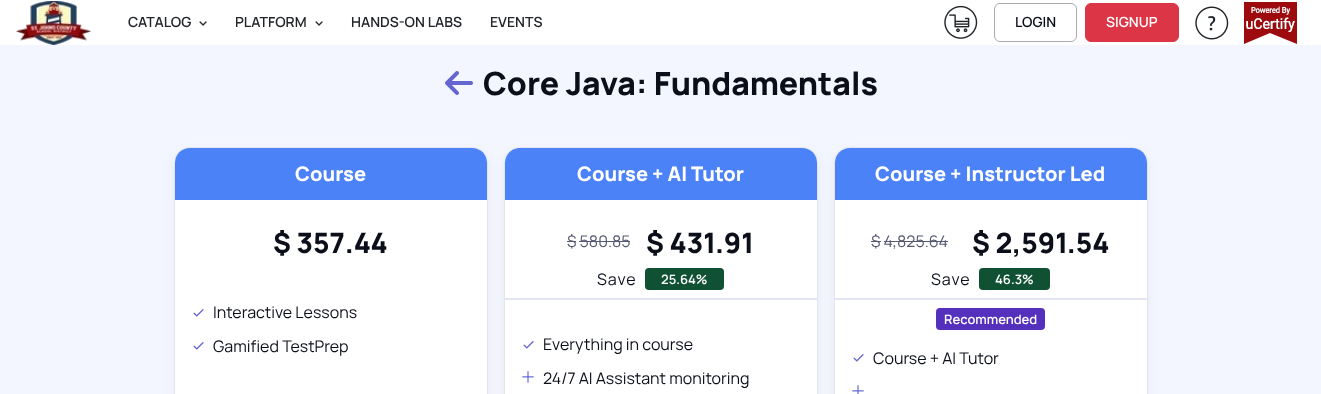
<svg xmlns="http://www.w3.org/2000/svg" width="1321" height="394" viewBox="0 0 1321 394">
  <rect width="100%" height="100%" fill="rgb(255,255,255)"/>
  <image x="16" y="1" width="75" height="44" href="pic1.png"/>
  <text x="128" y="27" font-family="Manrope" font-size="14" font-weight="600" fill="rgb(33,37,41)">CATALOG</text>
  <image x="199" y="21" width="8" height="5" href="pic2.png"/>
  <text x="235" y="27" font-family="Manrope" font-size="14" font-weight="600" fill="rgb(33,37,41)">PLATFORM</text>
  <image x="315" y="21" width="8" height="5" href="pic2.png"/>
  <g font-family="Manrope" font-size="14" font-weight="600" fill="rgb(33,37,41)">
    <text x="351" y="27">HANDS-ON LABS</text>
    <text x="490" y="27">EVENTS</text>
  </g>
  <image x="944" y="5" width="34" height="34" href="pic3.png"/>
  <rect x="994.5" y="3.5" width="82" height="38" rx="5.5" fill="none" stroke="rgb(170,171,175)"/>
  <text x="1015" y="27" font-family="Manrope" font-size="14" font-weight="600" fill="rgb(11,15,25)">LOGIN</text>
  <rect x="1085.5" y="3.5" width="93" height="38" rx="5.5" fill="rgb(220,53,69)" stroke="rgb(220,53,69)"/>
  <text x="1106" y="27" font-family="Manrope" font-size="14" font-weight="600" fill="rgb(255,255,255)">SIGNUP</text>
  <image x="1195" y="6" width="34" height="34" href="pic4.png"/>
  <image x="1244" y="2" width="53" height="42" href="pic5.png"/>
  <rect x="0" y="45" width="1321" height="349" fill="rgb(243,246,255)"/>
  <image x="445" y="71" width="28" height="24" href="pic6.png"/>
  <text x="483" y="95" font-family="Manrope" font-size="32" font-weight="800" fill="rgb(11,15,25)">Core Java: Fundamentals</text>
  <rect x="175" y="152" width="312" height="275" rx="15" fill="rgba(11,15,25,0.06)" filter="blur(6px)"/>
  <rect x="174.5" y="147.5" width="313" height="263" rx="15.5" fill="rgb(255,255,255)" stroke="rgb(226,229,241)"/>
  <path d="M190 148H472C480.5 148 487 154.5 487 163V200H175V163C175 154.5 181.5 148 190 148Z" fill="rgb(76,130,247)"/>
  <text x="295" y="181" font-family="Manrope" font-size="20" font-weight="800" fill="rgb(255,255,255)">Course</text>
  <text x="273" y="253" font-family="Manrope" font-size="28" font-weight="800" fill="rgb(11,15,25)">$ 357.44</text>
  <image x="193" y="309" width="11" height="8" href="pic7.png"/>
  <text x="213" y="318" font-family="Manrope" font-size="16" fill="rgb(11,15,25)">Interactive Lessons</text>
  <image x="193" y="342" width="11" height="8" href="pic7.png"/>
  <text x="213" y="352" font-family="Manrope" font-size="16" fill="rgb(11,15,25)">Gamified TestPrep</text>
  <rect x="505" y="152" width="312" height="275" rx="15" fill="rgba(11,15,25,0.06)" filter="blur(6px)"/>
  <rect x="504.5" y="147.5" width="313" height="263" rx="15.5" fill="rgb(255,255,255)" stroke="rgb(226,229,241)"/>
  <path d="M520 148H802C810.5 148 817 154.5 817 163V200H505V163C505 154.5 511.5 148 520 148Z" fill="rgb(76,130,247)"/>
  <text x="577" y="181" font-family="Manrope" font-size="20" font-weight="800" fill="rgb(255,255,255)">Course + AI Tutor</text>
  <text x="567" y="247" font-family="Manrope" font-size="16" fill="rgb(86,89,115)">$ 580.85</text>
  <rect x="567" y="241" width="9" height="1" fill="rgb(86,89,115)"/>
  <rect x="579" y="241" width="51" height="1" fill="rgb(86,89,115)"/>
  <text x="646" y="253" font-family="Manrope" font-size="28" font-weight="800" fill="rgb(11,15,25)">$ 431.91</text>
  <rect x="505" y="298" width="312" height="2" fill="rgb(226,229,241)"/>
  <text x="597" y="285" font-family="Manrope" font-size="16" letter-spacing="1" fill="rgb(11,15,25)">Save</text>
  <rect x="645" y="268" width="79" height="22" rx="4" fill="rgb(15,81,50)"/>
  <text x="661" y="284" font-family="Manrope" font-size="13" font-weight="600" fill="rgb(255,255,255)">25.64%</text>
  <image x="523" y="341" width="11" height="8" href="pic7.png"/>
  <text x="543" y="350" font-family="Manrope" font-size="16" fill="rgb(11,15,25)">Everything in course</text>
  <image x="522" y="371" width="12" height="12" href="pic8.png"/>
  <text x="543" y="384" font-family="Manrope" font-size="16" fill="rgb(11,15,25)">24/7 AI Assistant monitoring</text>
  <rect x="835" y="152" width="312" height="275" rx="15" fill="rgba(11,15,25,0.06)" filter="blur(6px)"/>
  <rect x="834.5" y="147.5" width="313" height="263" rx="15.5" fill="rgb(255,255,255)" stroke="rgb(226,229,241)"/>
  <path d="M850 148H1132C1140.5 148 1147 154.5 1147 163V200H835V163C835 154.5 841.5 148 850 148Z" fill="rgb(76,130,247)"/>
  <text x="875" y="181" font-family="Manrope" font-size="20" font-weight="800" fill="rgb(255,255,255)">Course + Instructor Led</text>
  <text x="871" y="247" font-family="Manrope" font-size="16" fill="rgb(86,89,115)">$ 4,825.64</text>
  <rect x="871" y="241" width="10" height="1" fill="rgb(86,89,115)"/>
  <rect x="884" y="241" width="64" height="1" fill="rgb(86,89,115)"/>
  <text x="972" y="253" font-family="Manrope" font-size="28" font-weight="800" fill="rgb(11,15,25)">$ 2,591.54</text>
  <rect x="835" y="298" width="312" height="2" fill="rgb(226,229,241)"/>
  <text x="931" y="285" font-family="Manrope" font-size="16" letter-spacing="1" fill="rgb(11,15,25)">Save</text>
  <rect x="979" y="268" width="71" height="22" rx="4" fill="rgb(15,81,50)"/>
  <text x="995" y="284" font-family="Manrope" font-size="13" font-weight="600" fill="rgb(255,255,255)">46.3%</text>
  <rect x="936" y="308" width="109" height="22" rx="4" fill="rgb(85,48,188)"/>
  <text x="944" y="324" font-family="Manrope" font-size="13" font-weight="600" fill="rgb(255,255,255)">Recommended</text>
  <image x="853" y="354" width="11" height="8" href="pic7.png"/>
  <text x="873" y="364" font-family="Manrope" font-size="16" fill="rgb(11,15,25)">Course + AI Tutor</text>
  <image x="852" y="385" width="12" height="9" href="pic9.png"/>
</svg>
